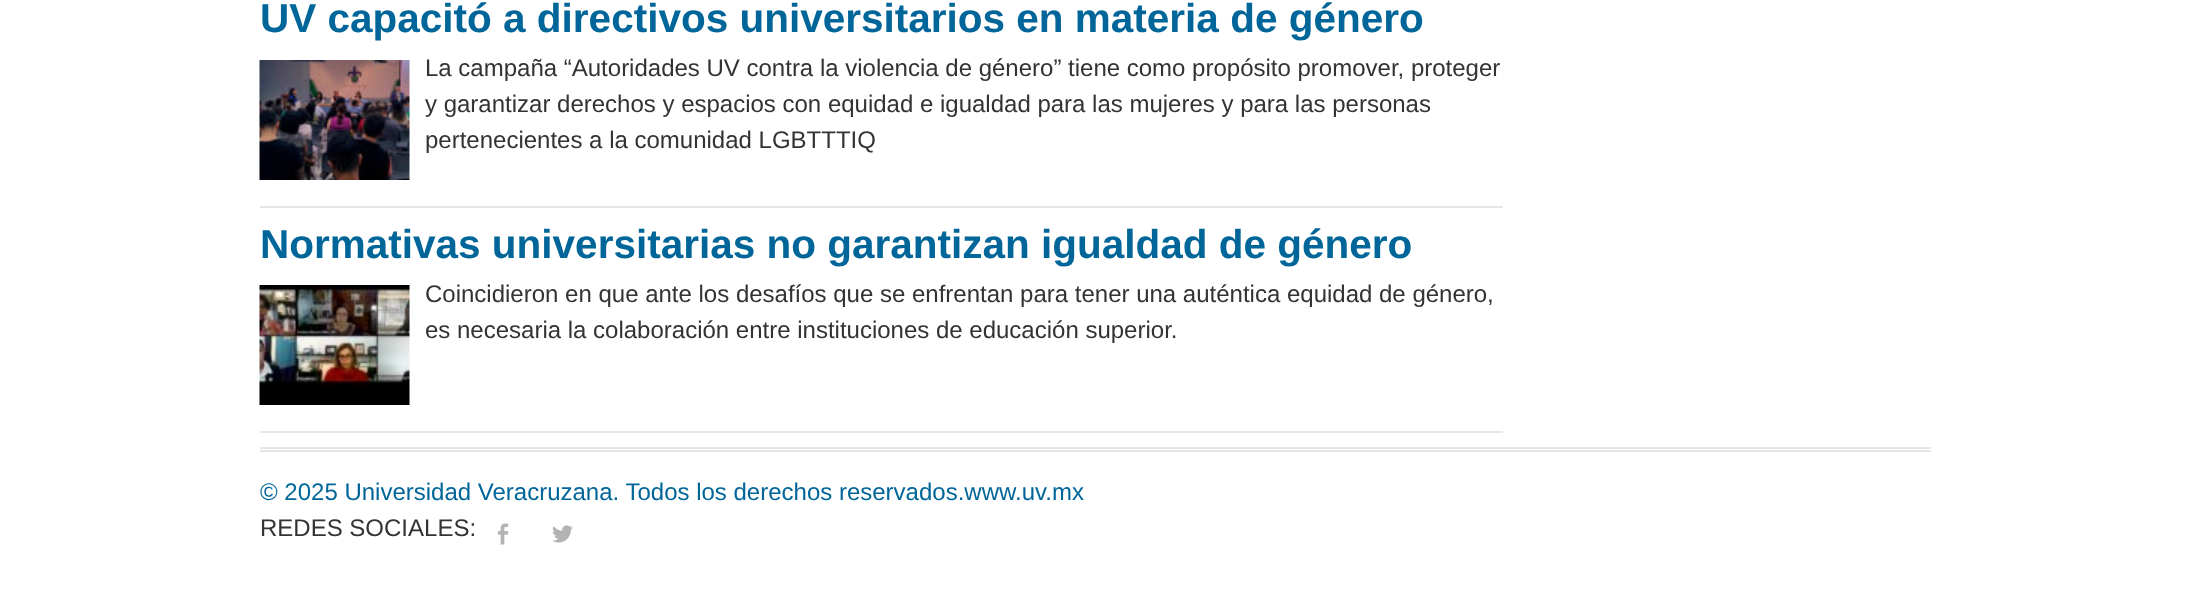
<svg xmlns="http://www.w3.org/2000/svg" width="2190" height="606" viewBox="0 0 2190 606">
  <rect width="100%" height="100%" fill="rgb(255,255,255)"/>
  <rect x="260" y="206" width="1243" height="2" fill="rgb(230,230,230)"/>
  <text x="260" y="32" font-family="Liberation Sans" font-size="40.5" font-weight="bold" fill="rgb(0,102,153)">UV capacitó a directivos universitarios en materia de género</text>
  <image x="259" y="60" width="151" height="120" href="pic1.png"/>
  <g font-family="Liberation Sans" font-size="24" fill="rgb(51,51,51)">
    <text>
      <tspan x="425" y="76">La campaña “Autoridades UV contra la violencia de género” tiene como propósito promover, proteger</tspan>
      <tspan x="425" y="112">y garantizar derechos y espacios con equidad e igualdad para las mujeres y para las personas</tspan>
      <tspan x="425" y="148">pertenecientes a la comunidad LGBTTTIQ</tspan>
    </text>
  </g>
  <rect x="260" y="431" width="1243" height="2" fill="rgb(230,230,230)"/>
  <text x="260" y="258" font-family="Liberation Sans" font-size="40.5" font-weight="bold" fill="rgb(0,102,153)">Normativas universitarias no garantizan igualdad de género</text>
  <image x="259" y="285" width="151" height="120" href="pic2.png"/>
  <g font-family="Liberation Sans" font-size="24" fill="rgb(51,51,51)">
    <text>
      <tspan x="425" y="302">Coincidieron en que ante los desafíos que se enfrentan para tener una auténtica equidad de género,</tspan>
      <tspan x="425" y="338">es necesaria la colaboración entre instituciones de educación superior.</tspan>
    </text>
  </g>
  <rect x="260" y="447" width="1671" height="2" fill="rgb(230,230,230)"/>
  <rect x="260" y="450" width="1671" height="2" fill="rgb(230,230,230)"/>
  <text x="260" y="500" font-family="Liberation Sans" font-size="24" fill="rgb(0,102,153)">© 2025 Universidad Veracruzana. Todos los derechos reservados.www.uv.mx</text>
  <text x="260" y="536" font-family="Liberation Sans" font-size="24" fill="rgb(51,51,51)">REDES SOCIALES:</text>
  <image x="498" y="523" width="11" height="22" href="pic3.png"/>
  <image x="552" y="525" width="21" height="18" href="pic4.png"/>
</svg>
